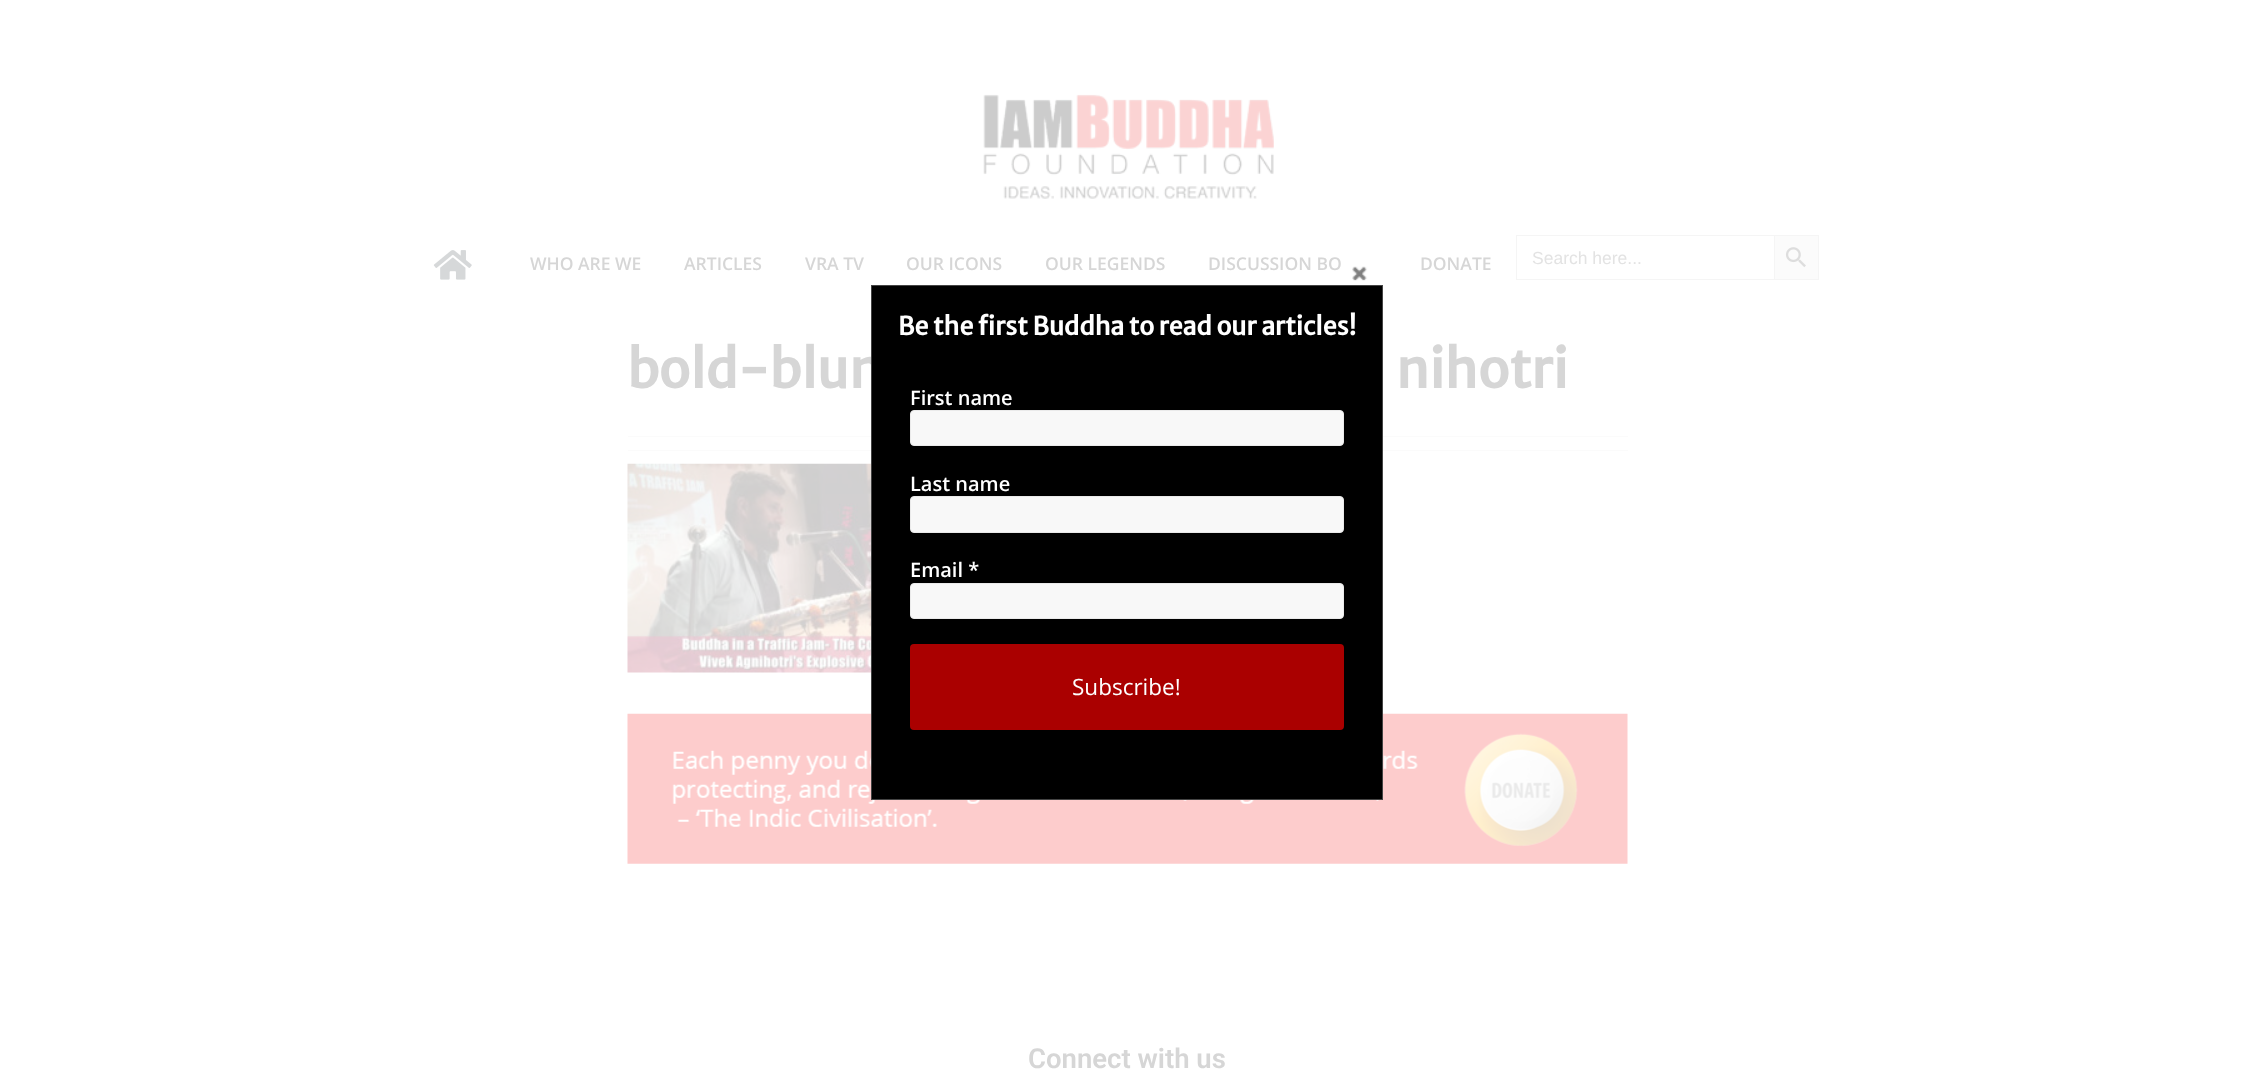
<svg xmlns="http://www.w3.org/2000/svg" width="2253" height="1085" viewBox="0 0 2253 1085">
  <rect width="100%" height="100%" fill="rgb(255,255,255)"/>
  <image x="983" y="94" width="291" height="105" href="pic1.png"/>
  <image x="433" y="250" width="39" height="30" href="pic2.png"/>
  <g font-family="Open Sans" font-size="17.5" font-weight="600" fill="rgb(214,214,214)">
    <text x="530" y="270">WHO ARE WE</text>
    <text x="684" y="270">ARTICLES</text>
    <text x="805" y="270">VRA TV</text>
    <text x="906" y="270">OUR ICONS</text>
    <text x="1045" y="270">OUR LEGENDS</text>
    <text x="1208" y="270">DISCUSSION BO</text>
    <text x="1420" y="270">DONATE</text>
  </g>
  <rect x="1516" y="235" width="258" height="1" fill="rgb(245,245,245)"/>
  <rect x="1516" y="279" width="258" height="1" fill="rgb(245,245,245)"/>
  <rect x="1516" y="235" width="1" height="45" fill="rgb(245,245,245)"/>
  <text x="1532" y="264" font-family="Liberation Sans" font-size="17.5" fill="rgb(227,227,227)">Search here...</text>
  <rect x="1774.5" y="235.5" width="44" height="44" fill="rgb(251,251,251)" stroke="rgb(245,245,245)"/>
  <image x="1785" y="247" width="21" height="21" href="pic3.png"/>
  <g font-family="Merriweather Sans" font-size="52.5" font-weight="bold" fill="rgb(214,214,214)">
    <text x="627" y="388">bold-blun</text>
    <text x="1396" y="388">nihotri</text>
  </g>
  <rect x="628" y="436" width="1000" height="1" fill="rgb(251,251,251)"/>
  <rect x="628" y="450" width="1000" height="1" fill="rgb(251,251,251)"/>
  <image x="627" y="463" width="244" height="210" href="pic4.png"/>
  <image x="627" y="713" width="1001" height="151" href="pic5.png"/>
  <text x="1028" y="1068" font-family="Roboto" font-size="27.5" font-weight="600" fill="rgb(214,214,214)">Connect with us</text>
  <image x="1346" y="260" width="26" height="21" href="pic6.png"/>
  <rect x="871.5" y="285.5" width="511" height="514" fill="rgb(0,0,0)" stroke="rgb(68,68,68)"/>
  <text x="898" y="335" font-family="Merriweather Sans" font-size="25" font-weight="bold" fill="rgb(255,255,255)">Be the first Buddha to read our articles!</text>
  <text x="910" y="405" font-family="Open Sans" font-size="20" font-weight="600" fill="rgb(255,255,255)">First name</text>
  <rect x="910.5" y="410.5" width="433" height="35" rx="3.5" fill="rgb(248,248,248)" stroke="rgb(234,234,234)"/>
  <text x="910" y="491" font-family="Open Sans" font-size="20" font-weight="600" fill="rgb(255,255,255)">Last name</text>
  <rect x="910.5" y="496.5" width="433" height="36" rx="3.5" fill="rgb(248,248,248)" stroke="rgb(234,234,234)"/>
  <text x="910" y="577" font-family="Open Sans" font-size="20" font-weight="600" fill="rgb(255,255,255)">Email *</text>
  <rect x="910.5" y="583.5" width="433" height="35" rx="3.5" fill="rgb(248,248,248)" stroke="rgb(234,234,234)"/>
  <rect x="910" y="644" width="434" height="86" rx="4" fill="rgb(170,0,0)"/>
  <text x="1072" y="695" font-family="Open Sans" font-size="22.5" fill="rgb(255,255,255)">Subscribe!</text>
</svg>
